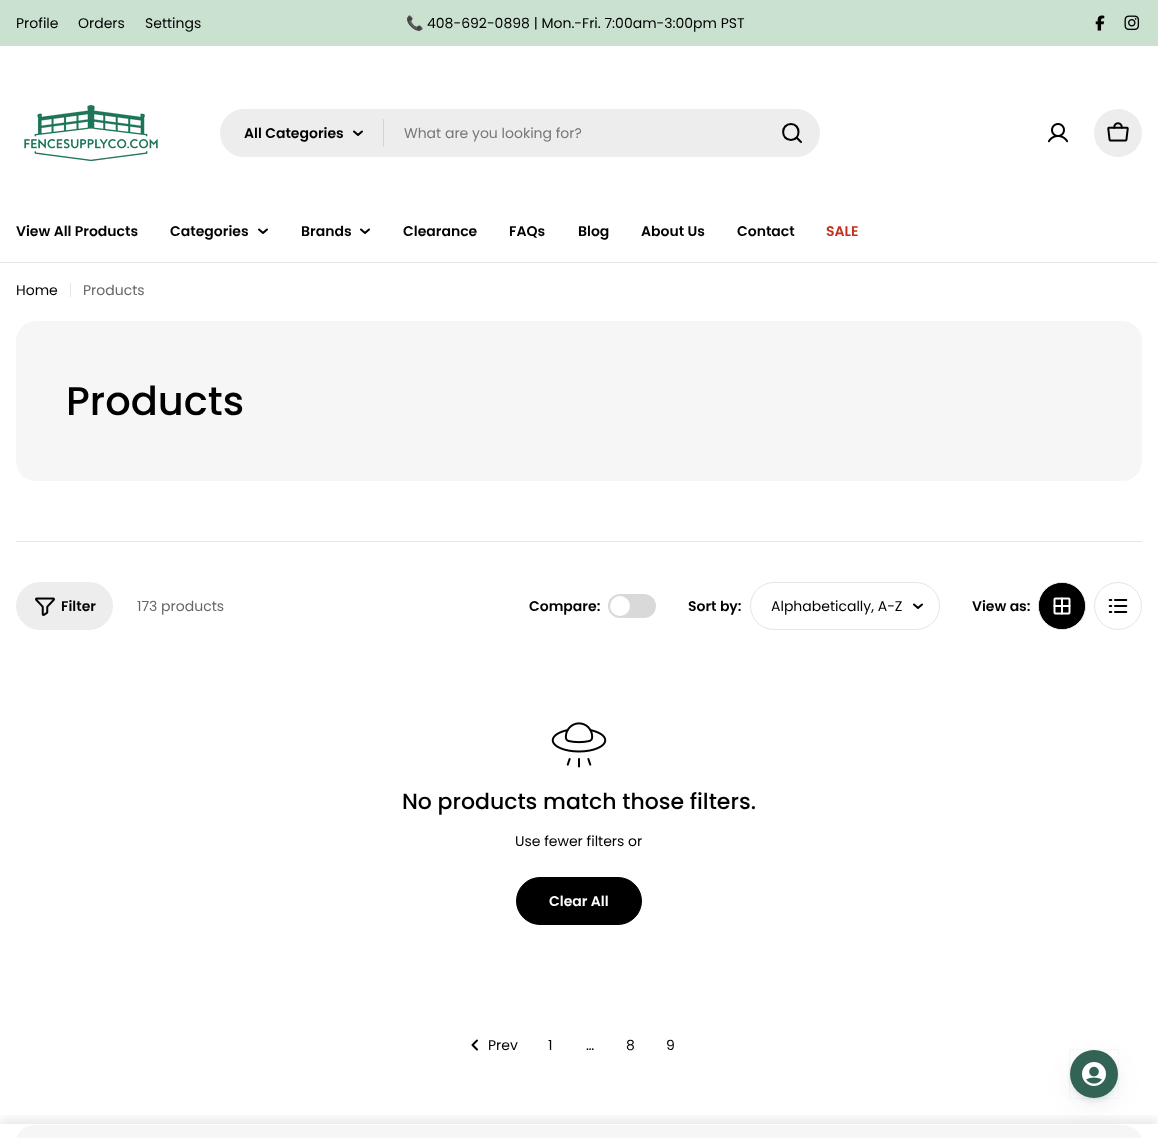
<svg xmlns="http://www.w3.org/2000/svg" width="1158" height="1138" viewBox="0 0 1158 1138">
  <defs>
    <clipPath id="clip1"><rect x="1039" y="583" width="46" height="46" rx="23"/></clipPath>
    <clipPath id="clip2"><rect x="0" y="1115" width="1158" height="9"/></clipPath>
  </defs>
  <rect width="100%" height="100%" fill="rgb(255,255,255)"/>
  <rect x="0" y="0" width="1158" height="46" fill="rgb(202,225,208)"/>
  <g font-family="Poppins" font-size="14" fill="rgb(0,0,0)">
    <text x="16" y="28">Profile</text>
    <text x="78" y="28">Orders</text>
    <text x="145" y="28">Settings</text>
  </g>
  <text x="406" y="28" font-family="Noto Color Emoji" font-size="14" fill="rgb(0,0,0)">📞</text>
  <text x="427" y="28" font-family="Poppins" font-size="14" fill="rgb(0,0,0)">408-692-0898 | Mon.-Fri. 7:00am-3:00pm PST</text>
  <image x="1095" y="15" width="10" height="16" href="pic1.png"/>
  <image x="1124" y="15" width="16" height="16" href="pic2.png"/>
  <image x="24" y="104" width="134" height="58" href="pic3.png"/>
  <rect x="220" y="109" width="600" height="48" rx="24" fill="rgb(237,237,237)"/>
  <text x="244" y="138" font-family="Poppins" font-size="14" font-weight="600" fill="rgb(0,0,0)">All Categories</text>
  <path d="M362 131.5L358 135L354 131.5" fill="none" stroke="rgb(0,0,0)" stroke-width="2" stroke-linecap="round" stroke-linejoin="round"/>
  <rect x="383" y="119" width="1" height="28" fill="rgb(213,213,213)"/>
  <text x="404" y="138" font-family="Poppins" font-size="14" fill="rgb(119,119,119)">What are you looking for?</text>
  <path d="M791 140C801 140 801 124 791 124C780.5 124 780.5 140 791 140ZM796.5 137.5L801 142" fill="none" stroke="rgb(0,0,0)" stroke-width="2" stroke-linecap="round" stroke-linejoin="round"/>
  <image x="1047" y="123" width="22" height="20" href="pic4.png"/>
  <circle cx="1118" cy="133" r="24" fill="rgb(237,237,237)"/>
  <image x="1107" y="122" width="22" height="20" href="pic5.png"/>
  <rect x="0" y="262" width="1158" height="1" fill="rgb(229,229,229)"/>
  <g font-family="Poppins" font-size="14" font-weight="600" fill="rgb(0,0,0)">
    <text x="16" y="236">View All Products</text>
    <text x="170" y="236">Categories</text>
  </g>
  <path d="M267 229.5L263 233L259 229.5" fill="none" stroke="rgb(0,0,0)" stroke-width="2" stroke-linecap="round" stroke-linejoin="round"/>
  <text x="301" y="236" font-family="Poppins" font-size="14" font-weight="600" fill="rgb(0,0,0)">Brands</text>
  <path d="M369 229.5L365 233L361 229.5" fill="none" stroke="rgb(0,0,0)" stroke-width="2" stroke-linecap="round" stroke-linejoin="round"/>
  <g font-family="Poppins" font-size="14" font-weight="600" fill="rgb(0,0,0)">
    <text x="403" y="236">Clearance</text>
    <text x="509" y="236">FAQs</text>
    <text x="578" y="236">Blog</text>
    <text x="641" y="236">About Us</text>
    <text x="737" y="236">Contact</text>
  </g>
  <text x="826" y="236" font-family="Poppins" font-size="14" font-weight="600" fill="rgb(196,48,28)">SALE</text>
  <text x="16" y="295" font-family="Poppins" font-size="14" fill="rgb(0,0,0)">Home</text>
  <rect x="70" y="283" width="1" height="14" fill="rgb(230,230,230)"/>
  <text x="83" y="295" font-family="Poppins" font-size="14" fill="rgb(102,102,102)">Products</text>
  <rect x="16" y="321" width="1126" height="160" rx="20" fill="rgb(246,246,246)"/>
  <text x="66" y="415" font-family="Poppins" font-size="40" font-weight="500" fill="rgb(0,0,0)">Products</text>
  <rect x="16" y="541" width="1126" height="1" fill="rgb(229,229,229)"/>
  <rect x="16.5" y="582.5" width="96" height="47" rx="23.5" fill="rgb(237,237,237)" stroke="rgb(237,237,237)"/>
  <image x="35" y="597" width="20" height="19" href="pic6.png"/>
  <text x="61" y="611" font-family="Poppins" font-size="14" font-weight="600" fill="rgb(0,0,0)">Filter</text>
  <text x="137" y="611" font-family="Poppins" font-size="14" fill="rgb(102,102,102)">173 products</text>
  <text x="529" y="611" font-family="Poppins" font-size="14" font-weight="600" fill="rgb(0,0,0)">Compare:</text>
  <rect x="608" y="594" width="48" height="24" rx="12" fill="rgb(217,217,217)"/>
  <circle cx="620" cy="606" r="10" fill="rgb(255,255,255)"/>
  <text x="688" y="611" font-family="Poppins" font-size="14" font-weight="600" fill="rgb(0,0,0)">Sort by:</text>
  <rect x="750.5" y="582.5" width="189" height="47" rx="23.5" fill="none" stroke="rgb(229,229,229)"/>
  <text x="771" y="611" font-family="Poppins" font-size="14" fill="rgb(0,0,0)">Alphabetically, A-Z</text>
  <path d="M922 604.5L918 608L914 604.5" fill="none" stroke="rgb(0,0,0)" stroke-width="2" stroke-linecap="round" stroke-linejoin="round"/>
  <text x="972" y="611" font-family="Poppins" font-size="14" font-weight="600" fill="rgb(0,0,0)">View as:</text>
  <circle cx="1062" cy="606" r="23.5" fill="rgb(0,0,0)" stroke="rgb(229,229,229)"/>
  <g clip-path="url(#clip1)">
    <rect x="1038" y="582" width="47" height="48" rx="23.5" fill="rgb(0,0,0)"/>
  </g>
  <image x="1053" y="597" width="18" height="18" href="pic7.png"/>
  <circle cx="1118" cy="606" r="23.5" fill="none" stroke="rgb(229,229,229)"/>
  <image x="1108" y="599" width="20" height="14" href="pic8.png"/>
  <image x="551" y="722" width="56" height="46" href="pic9.png"/>
  <text x="402" y="809" font-family="Poppins" font-size="22" font-weight="500" fill="rgb(0,0,0)">No products match those filters.</text>
  <text x="515" y="846" font-family="Poppins" font-size="14" fill="rgb(0,0,0)">Use fewer filters or</text>
  <rect x="516.5" y="877.5" width="125" height="47" rx="23.5" fill="rgb(0,0,0)" stroke="rgb(0,0,0)"/>
  <text x="549" y="906" font-family="Poppins" font-size="14" font-weight="600" fill="rgb(255,255,255)">Clear All</text>
  <path d="M477 1049.5L472.5 1045L477 1040.5" fill="none" stroke="rgb(0,0,0)" stroke-width="2" stroke-linecap="round" stroke-linejoin="round"/>
  <g font-family="Poppins" font-size="14" fill="rgb(0,0,0)">
    <text x="488" y="1050">Prev</text>
    <text x="548" y="1050">1</text>
    <text x="586" y="1050">…</text>
    <text x="626" y="1050">8</text>
    <text x="666" y="1050">9</text>
  </g>
  <g clip-path="url(#clip2)">
    <rect x="0" y="1118" width="1158" height="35" fill="rgba(0,0,0,0.08)" filter="blur(5px)"/>
  </g>
  <rect x="16" y="1125" width="1126" height="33" rx="20" fill="rgb(246,246,246)"/>
  <rect x="1070" y="1058" width="48" height="48" rx="24" fill="rgba(55,63,71,0.08)" filter="blur(12px)"/>
  <rect x="1070" y="1054" width="48" height="48" rx="24" fill="rgba(55,63,71,0.08)" filter="blur(2px)"/>
  <rect x="1069.5" y="1049.5" width="49" height="49" fill="none" stroke="rgba(55,63,71,0.04)"/>
  <circle cx="1094" cy="1074" r="24" fill="rgb(51,99,85)"/>
  <image x="1082" y="1062" width="24" height="24" href="pic10.png"/>
</svg>
